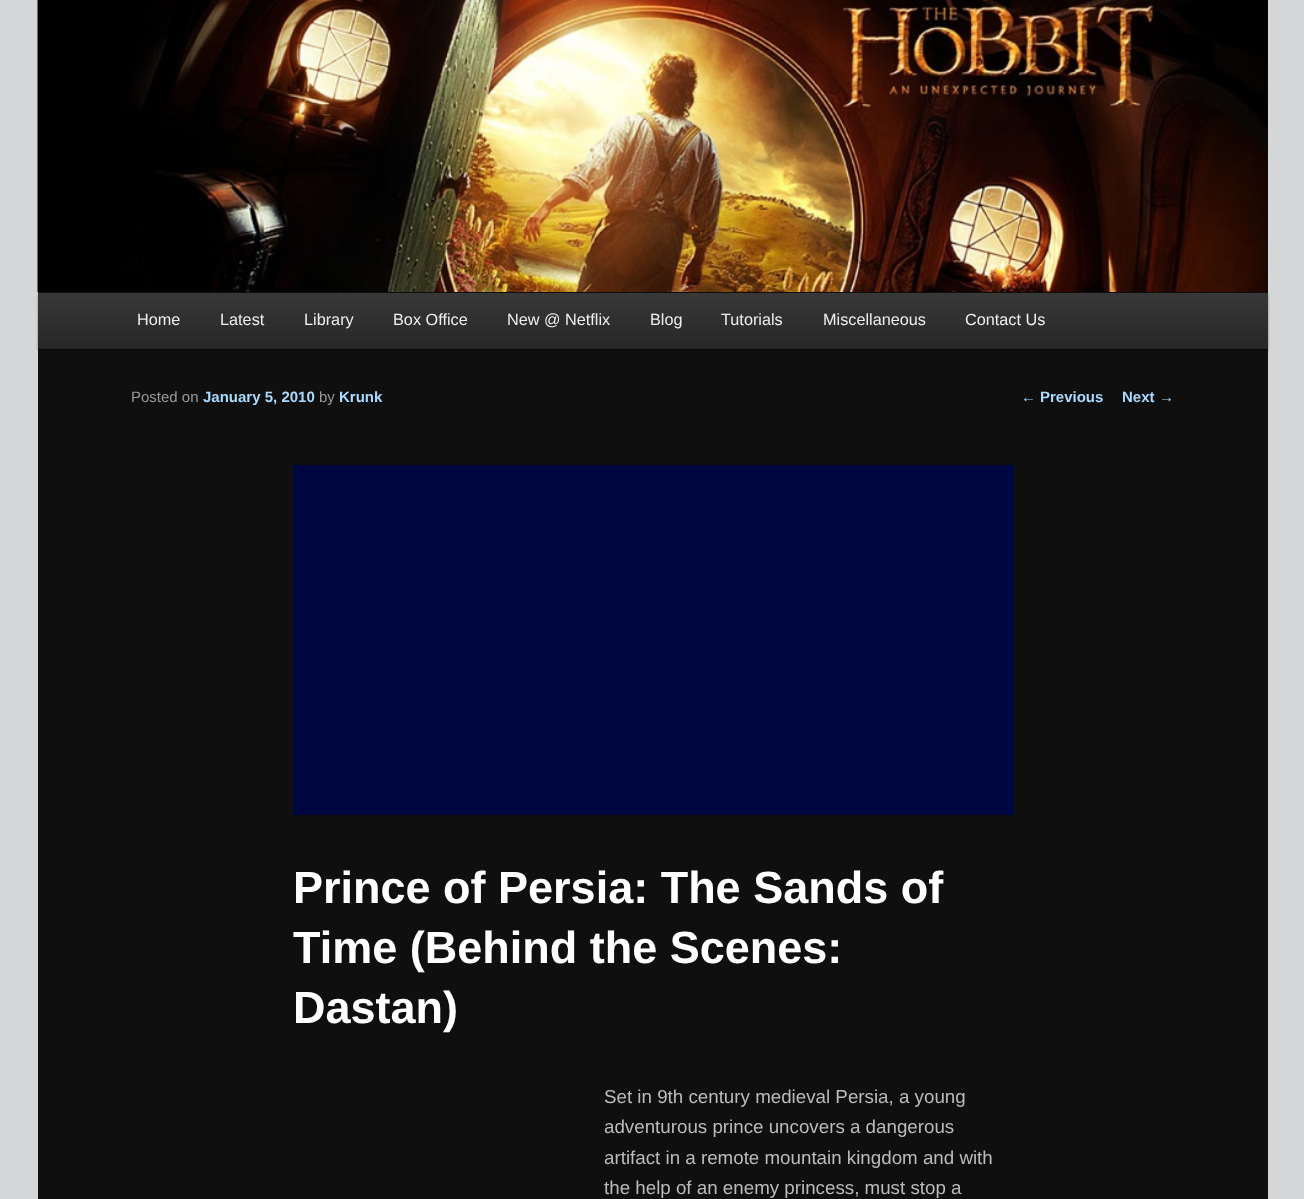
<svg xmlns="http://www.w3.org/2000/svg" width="1304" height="1199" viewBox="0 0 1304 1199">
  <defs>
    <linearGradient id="g1" gradientUnits="userSpaceOnUse" x1="653" y1="292" x2="653" y2="348"><stop offset="0" stop-color="rgb(56,56,56)"/><stop offset="1" stop-color="rgb(39,39,39)"/></linearGradient>
  </defs>
  <rect width="100%" height="100%" fill="rgb(213,214,215)"/>
  <rect x="38" y="0" width="1230" height="1199" fill="rgb(15,15,15)"/>
  <rect x="38" y="294" width="1230" height="56" fill="rgba(0,0,0,0.4)" filter="blur(1px)"/>
  <image x="37" y="0" width="1231" height="292" href="pic1.png"/>
  <rect x="38" y="293" width="1230" height="55" fill="url(#g1)"/>
  <rect x="38" y="348" width="1230" height="1" fill="rgb(34,34,34)"/>
  <g font-family="Liberation Sans" font-size="16.25" fill="rgb(238,238,238)">
    <text x="137" y="325">Home</text>
    <text x="220" y="325">Latest</text>
    <text x="304" y="325">Library</text>
    <text x="393" y="325">Box Office</text>
    <text x="507" y="325">New @ Netflix</text>
    <text x="650" y="325">Blog</text>
    <text x="721" y="325">Tutorials</text>
    <text x="823" y="325">Miscellaneous</text>
    <text x="965" y="325">Contact Us</text>
  </g>
  <text x="131" y="402" font-family="Liberation Sans" font-size="15" fill="rgb(153,153,153)">Posted on</text>
  <text x="203" y="402" font-family="Liberation Sans" font-size="15" font-weight="bold" fill="rgb(168,218,255)">January 5, 2010</text>
  <text x="319" y="402" font-family="Liberation Sans" font-size="15" fill="rgb(153,153,153)">by</text>
  <text x="339" y="402" font-family="Liberation Sans" font-size="15" font-weight="bold" fill="rgb(168,218,255)">Krunk</text>
  <g font-family="Liberation Sans" font-size="45" font-weight="bold" fill="rgb(255,255,255)">
    <text>
      <tspan x="293" y="903">Prince of Persia: The Sands of</tspan>
      <tspan x="293" y="963">Time (Behind the Scenes:</tspan>
      <tspan x="293" y="1023">Dastan)</tspan>
    </text>
  </g>
  <g font-family="Liberation Sans" font-size="18.75" fill="rgb(187,187,187)">
    <text>
      <tspan x="604" y="1103">Set in 9th century medieval Persia, a young</tspan>
      <tspan x="604" y="1133">adventurous prince uncovers a dangerous</tspan>
      <tspan x="604" y="1164">artifact in a remote mountain kingdom and with</tspan>
      <tspan x="604" y="1194">the help of an enemy princess, must stop a</tspan>
    </text>
  </g>
  <text x="1021" y="402" font-family="Liberation Sans" font-size="15" fill="rgb(168,218,255)">←</text>
  <g font-family="Liberation Sans" font-size="15" font-weight="bold" fill="rgb(168,218,255)">
    <text x="1040" y="402">Previous</text>
    <text x="1122" y="402">Next</text>
  </g>
  <text x="1159" y="402" font-family="Liberation Sans" font-size="15" fill="rgb(168,218,255)">→</text>
  <rect x="293" y="465" width="721" height="350" fill="rgb(0,6,63)"/>
</svg>
